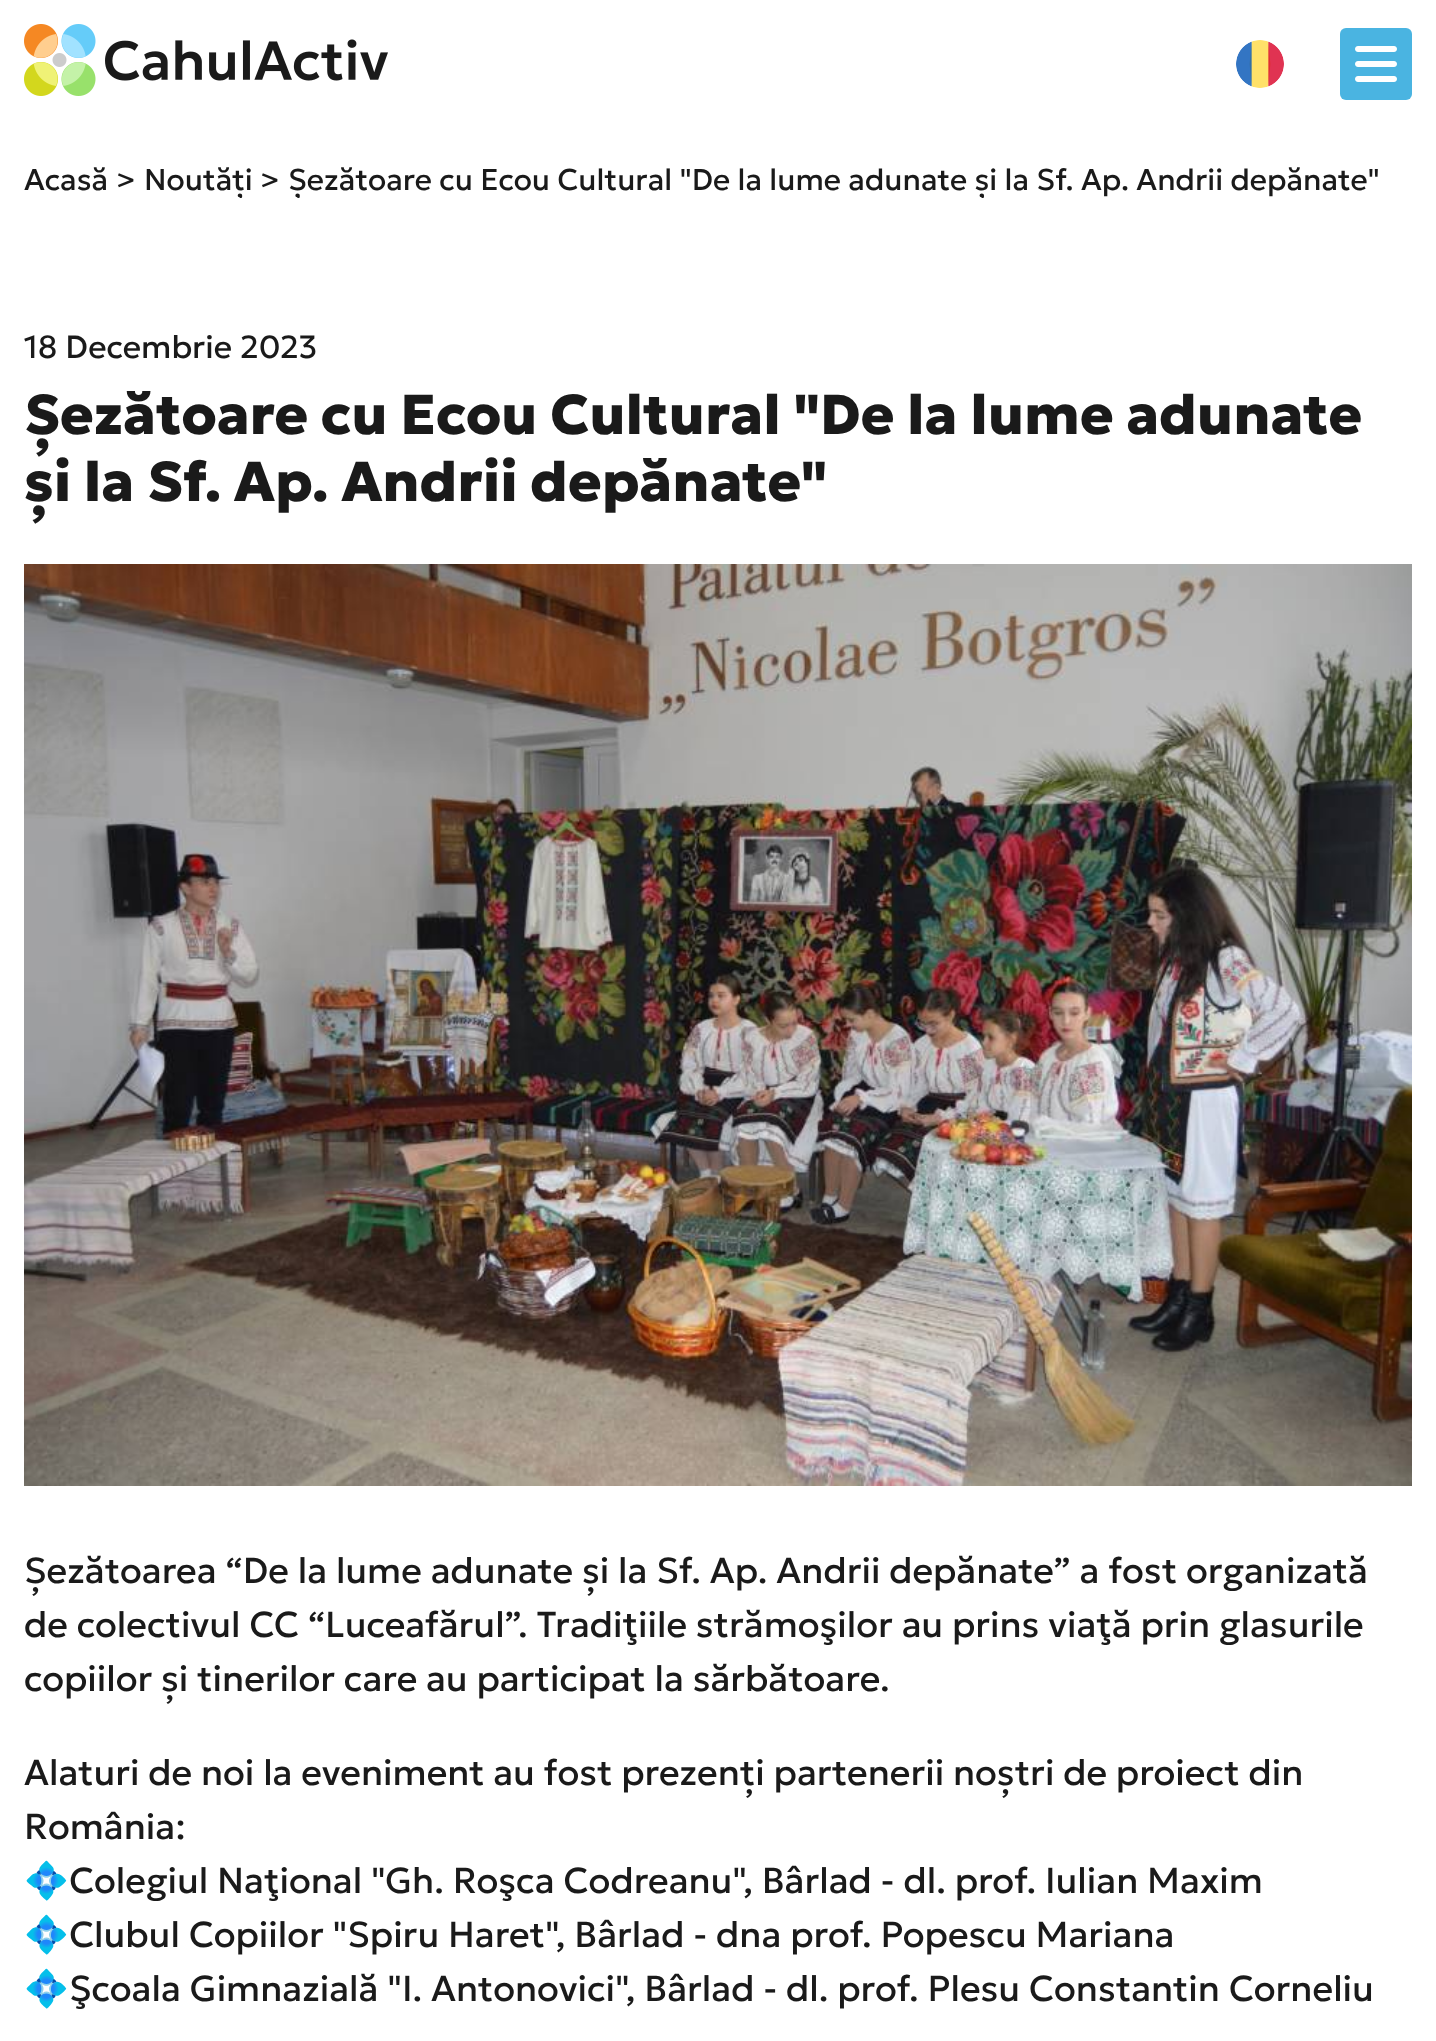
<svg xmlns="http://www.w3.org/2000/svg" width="1436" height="2041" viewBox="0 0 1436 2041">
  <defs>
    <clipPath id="clip1"><rect x="24" y="160" width="1360" height="38"/></clipPath>
  </defs>
  <rect width="100%" height="100%" fill="rgb(255,255,255)"/>
  <image x="24" y="24" width="364" height="72" href="pic1.png"/>
  <image x="1236" y="40" width="48" height="48" href="pic2.png"/>
  <rect x="1340" y="28" width="72" height="72" rx="6" fill="rgb(74,180,225)"/>
  <image x="1355" y="46" width="42" height="36" href="pic3.png"/>
  <g font-family="Geologica" font-size="30" fill="rgb(26,26,26)">
    <text x="24" y="190">Acasă</text>
    <text x="116" y="190">&gt;</text>
  </g>
  <g clip-path="url(#clip1)">
    <text x="144" y="190" font-family="Geologica" font-size="30" fill="rgb(26,26,26)">Noutăți</text>
  </g>
  <text x="260" y="190" font-family="Geologica" font-size="30" fill="rgb(26,26,26)">&gt;</text>
  <g clip-path="url(#clip1)">
    <text x="288" y="190" font-family="Geologica" font-size="30" fill="rgb(26,26,26)">Șezătoare cu Ecou Cultural "De la lume adunate și la Sf. Ap. Andrii depănate"</text>
  </g>
  <text x="24" y="358" font-family="Geologica" font-size="32" fill="rgb(26,26,26)">18 Decembrie 2023</text>
  <g font-family="Geologica" font-size="56" font-weight="800" fill="rgb(26,26,26)">
    <text>
      <tspan x="24" y="434">Șezătoare cu Ecou Cultural "De la lume adunate</tspan>
      <tspan x="24" y="501">și la Sf. Ap. Andrii depănate"</tspan>
    </text>
  </g>
  <image x="24" y="564" width="1388" height="922" href="pic4.png"/>
  <g font-family="Geologica" font-size="36" fill="rgb(26,26,26)">
    <text>
      <tspan x="24" y="1583">Șezătoarea “De la lume adunate și la Sf. Ap. Andrii depănate” a fost organizată</tspan>
      <tspan x="24" y="1637">de colectivul CC “Luceafărul”. Tradiţiile strămoşilor au prins viaţă prin glasurile</tspan>
      <tspan x="24" y="1691">copiilor și tinerilor care au participat la sărbătoare.</tspan>
    </text>
    <text>
      <tspan x="24" y="1785">Alaturi de noi la eveniment au fost prezenți partenerii noștri de proiect din</tspan>
      <tspan x="24" y="1839">România:</tspan>
    </text>
  </g>
  <text x="24" y="1893" font-family="Noto Color Emoji" font-size="36" fill="rgb(26,26,26)">💠</text>
  <text x="69" y="1893" font-family="Geologica" font-size="36" fill="rgb(26,26,26)">Colegiul Naţional "Gh. Roşca Codreanu", Bârlad - dl. prof. Iulian Maxim</text>
  <text x="24" y="1947" font-family="Noto Color Emoji" font-size="36" fill="rgb(26,26,26)">💠</text>
  <text x="69" y="1947" font-family="Geologica" font-size="36" fill="rgb(26,26,26)">Clubul Copiilor "Spiru Haret", Bârlad - dna prof. Popescu Mariana</text>
  <text x="24" y="2001" font-family="Noto Color Emoji" font-size="36" fill="rgb(26,26,26)">💠</text>
  <text x="69" y="2001" font-family="Geologica" font-size="36" fill="rgb(26,26,26)">Şcoala Gimnazială "I. Antonovici", Bârlad - dl. prof. Plesu Constantin Corneliu</text>
</svg>
